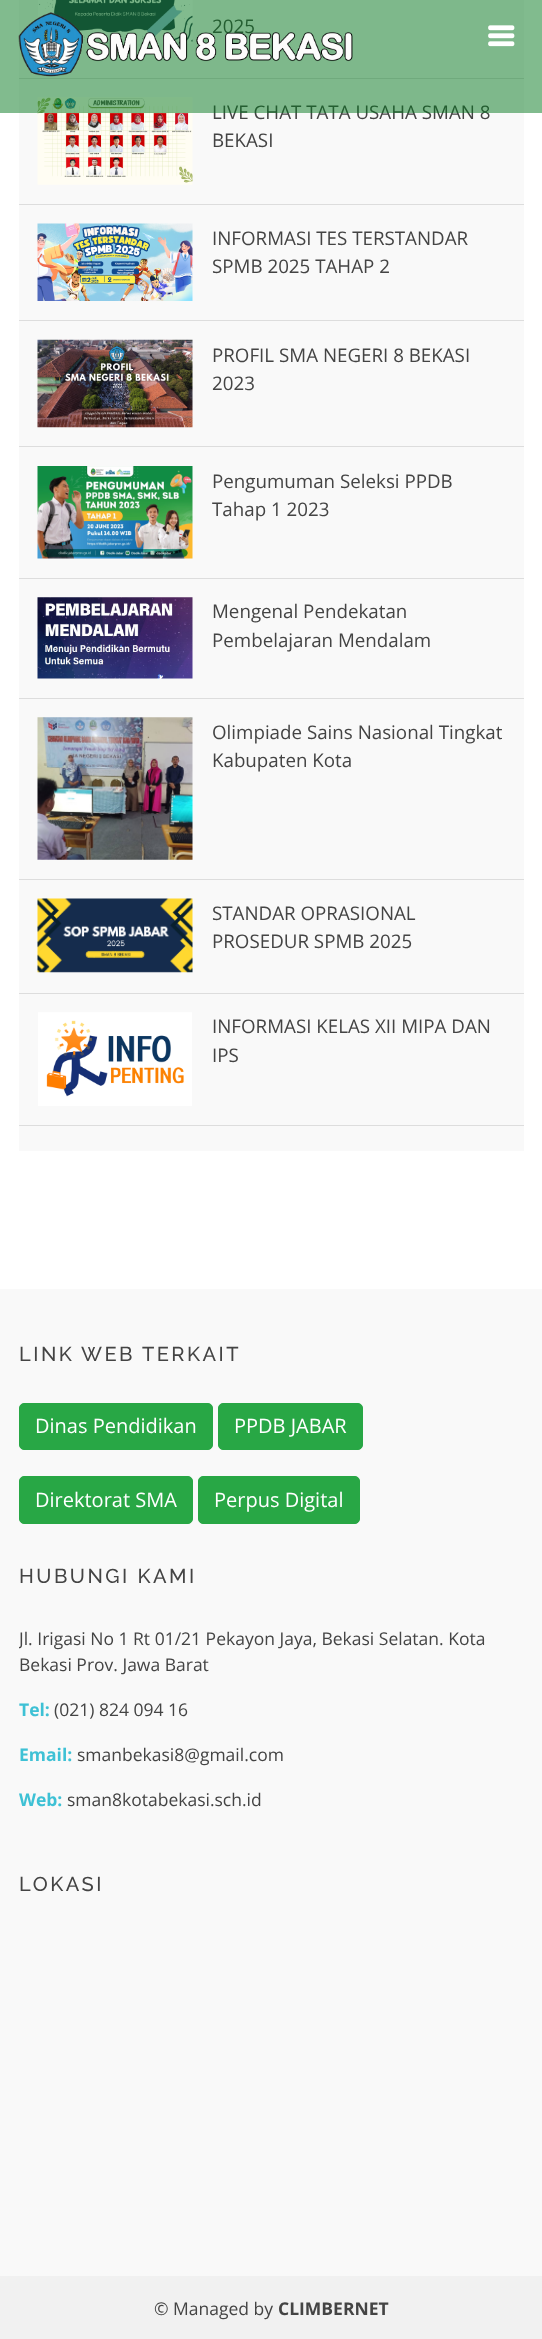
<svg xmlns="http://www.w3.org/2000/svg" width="542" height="2339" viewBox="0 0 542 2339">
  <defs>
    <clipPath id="clip1"><rect x="19" y="1561" width="505" height="270"/></clipPath>
  </defs>
  <rect width="100%" height="100%" fill="rgb(255,255,255)"/>
  <rect x="19" y="0" width="505" height="1151" fill="rgb(249,249,249)"/>
  <rect x="19" y="78" width="505" height="1" fill="rgb(221,221,221)"/>
  <image x="38" y="0" width="155" height="44" href="pic2.png"/>
  <text x="212" y="33" font-family="Open Sans" font-size="18.75" fill="rgb(68,68,68)">2025</text>
  <image x="37" y="97" width="156" height="88" href="pic3.png"/>
  <text x="212" y="119" font-family="Open Sans" font-size="18.75" fill="rgb(68,68,68)">LIVE CHAT TATA USAHA SMAN 8</text>
  <rect x="0" y="0" width="542" height="113" fill="rgba(4,119,29,0.5)"/>
  <image x="18" y="12" width="335" height="65" href="pic1.png"/>
  <rect x="19" y="204" width="505" height="1" fill="rgb(221,221,221)"/>
  <text x="212" y="147" font-family="Open Sans" font-size="18.75" fill="rgb(68,68,68)">BEKASI</text>
  <rect x="19" y="320" width="505" height="1" fill="rgb(221,221,221)"/>
  <image x="37" y="223" width="156" height="78" href="pic4.png"/>
  <g font-family="Open Sans" font-size="18.75" fill="rgb(68,68,68)">
    <text>
      <tspan x="212" y="245">INFORMASI TES TERSTANDAR</tspan>
      <tspan x="212" y="273">SPMB 2025 TAHAP 2</tspan>
    </text>
  </g>
  <rect x="19" y="446" width="505" height="1" fill="rgb(221,221,221)"/>
  <image x="37" y="339" width="156" height="89" href="pic5.png"/>
  <g font-family="Open Sans" font-size="18.75" fill="rgb(68,68,68)">
    <text>
      <tspan x="212" y="362">PROFIL SMA NEGERI 8 BEKASI</tspan>
      <tspan x="212" y="390">2023</tspan>
    </text>
  </g>
  <rect x="19" y="578" width="505" height="1" fill="rgb(221,221,221)"/>
  <image x="37" y="466" width="156" height="93" href="pic6.png"/>
  <g font-family="Open Sans" font-size="18.75" fill="rgb(68,68,68)">
    <text>
      <tspan x="212" y="488">Pengumuman Seleksi PPDB</tspan>
      <tspan x="212" y="516">Tahap 1 2023</tspan>
    </text>
  </g>
  <rect x="19" y="698" width="505" height="1" fill="rgb(221,221,221)"/>
  <image x="37" y="597" width="156" height="82" href="pic7.png"/>
  <g font-family="Open Sans" font-size="18.75" fill="rgb(68,68,68)">
    <text>
      <tspan x="212" y="618">Mengenal Pendekatan</tspan>
      <tspan x="212" y="647">Pembelajaran Mendalam</tspan>
    </text>
  </g>
  <rect x="19" y="879" width="505" height="1" fill="rgb(221,221,221)"/>
  <image x="37" y="717" width="156" height="143" href="pic8.png"/>
  <g font-family="Open Sans" font-size="18.75" fill="rgb(68,68,68)">
    <text>
      <tspan x="212" y="739">Olimpiade Sains Nasional Tingkat</tspan>
      <tspan x="212" y="767">Kabupaten Kota</tspan>
    </text>
  </g>
  <rect x="19" y="993" width="505" height="1" fill="rgb(221,221,221)"/>
  <image x="37" y="898" width="156" height="75" href="pic9.png"/>
  <g font-family="Open Sans" font-size="18.75" fill="rgb(68,68,68)">
    <text>
      <tspan x="212" y="920">STANDAR OPRASIONAL</tspan>
      <tspan x="212" y="948">PROSEDUR SPMB 2025</tspan>
    </text>
  </g>
  <rect x="19" y="1125" width="505" height="1" fill="rgb(221,221,221)"/>
  <image x="38" y="1012" width="154" height="94" href="pic10.png"/>
  <g font-family="Open Sans" font-size="18.75" fill="rgb(68,68,68)">
    <text>
      <tspan x="212" y="1033">INFORMASI KELAS XII MIPA DAN</tspan>
      <tspan x="212" y="1062">IPS</tspan>
    </text>
  </g>
  <image x="488" y="25" width="27" height="22" href="pic11.png"/>
  <rect x="0" y="1289" width="542" height="987" fill="rgb(249,249,249)"/>
  <text x="19" y="1361" font-family="Raleway" font-size="20" font-weight="500" letter-spacing="2.5" fill="rgb(68,68,68)">LINK WEB TERKAIT</text>
  <rect x="19.5" y="1403.5" width="193" height="46" rx="4.5" fill="rgb(40,167,69)" stroke="rgb(40,167,69)"/>
  <text x="35" y="1433" font-family="Open Sans" font-size="20" fill="rgb(255,255,255)">Dinas Pendidikan</text>
  <rect x="218.5" y="1403.5" width="144" height="46" rx="4.5" fill="rgb(40,167,69)" stroke="rgb(40,167,69)"/>
  <text x="234" y="1433" font-family="Open Sans" font-size="20" fill="rgb(255,255,255)">PPDB JABAR</text>
  <rect x="19.5" y="1476.5" width="173" height="47" rx="4.5" fill="rgb(40,167,69)" stroke="rgb(40,167,69)"/>
  <text x="35" y="1507" font-family="Open Sans" font-size="20" fill="rgb(255,255,255)">Direktorat SMA</text>
  <rect x="198.5" y="1476.5" width="161" height="47" rx="4.5" fill="rgb(40,167,69)" stroke="rgb(40,167,69)"/>
  <text x="214" y="1507" font-family="Open Sans" font-size="20" fill="rgb(255,255,255)">Perpus Digital</text>
  <text x="19" y="1583" font-family="Raleway" font-size="20" font-weight="500" letter-spacing="2.5" fill="rgb(68,68,68)">HUBUNGI KAMI</text>
  <g clip-path="url(#clip1)">
    <text x="19" y="1645" font-family="Open Sans" font-size="17.5" fill="rgb(68,68,68)">Jl. Irigasi No 1 Rt 01/21 Pekayon Jaya, Bekasi Selatan. Kota</text>
  </g>
  <text x="19" y="1671" font-family="Open Sans" font-size="17.5" fill="rgb(68,68,68)">Bekasi Prov. Jawa Barat</text>
  <text x="19" y="1716" font-family="Open Sans" font-size="17.5" font-weight="bold" fill="rgb(62,193,213)">Tel:</text>
  <text x="54" y="1716" font-family="Open Sans" font-size="17.5" fill="rgb(68,68,68)">(021) 824 094 16</text>
  <text x="19" y="1761" font-family="Open Sans" font-size="17.5" font-weight="bold" fill="rgb(62,193,213)">Email:</text>
  <text x="77" y="1761" font-family="Open Sans" font-size="17.5" fill="rgb(68,68,68)">smanbekasi8@gmail.com</text>
  <text x="19" y="1806" font-family="Open Sans" font-size="17.5" font-weight="bold" fill="rgb(62,193,213)">Web:</text>
  <text x="67" y="1806" font-family="Open Sans" font-size="17.5" fill="rgb(68,68,68)">sman8kotabekasi.sch.id</text>
  <text x="19" y="1891" font-family="Raleway" font-size="20" font-weight="500" letter-spacing="2.5" fill="rgb(68,68,68)">LOKASI</text>
  <rect x="0" y="2276" width="542" height="63" fill="rgb(241,241,241)"/>
  <text x="154" y="2315" font-family="Open Sans" font-size="17.5" fill="rgb(68,68,68)">© Managed by</text>
  <text x="278" y="2315" font-family="Open Sans" font-size="17.5" font-weight="bold" fill="rgb(68,68,68)">CLIMBERNET</text>
</svg>
